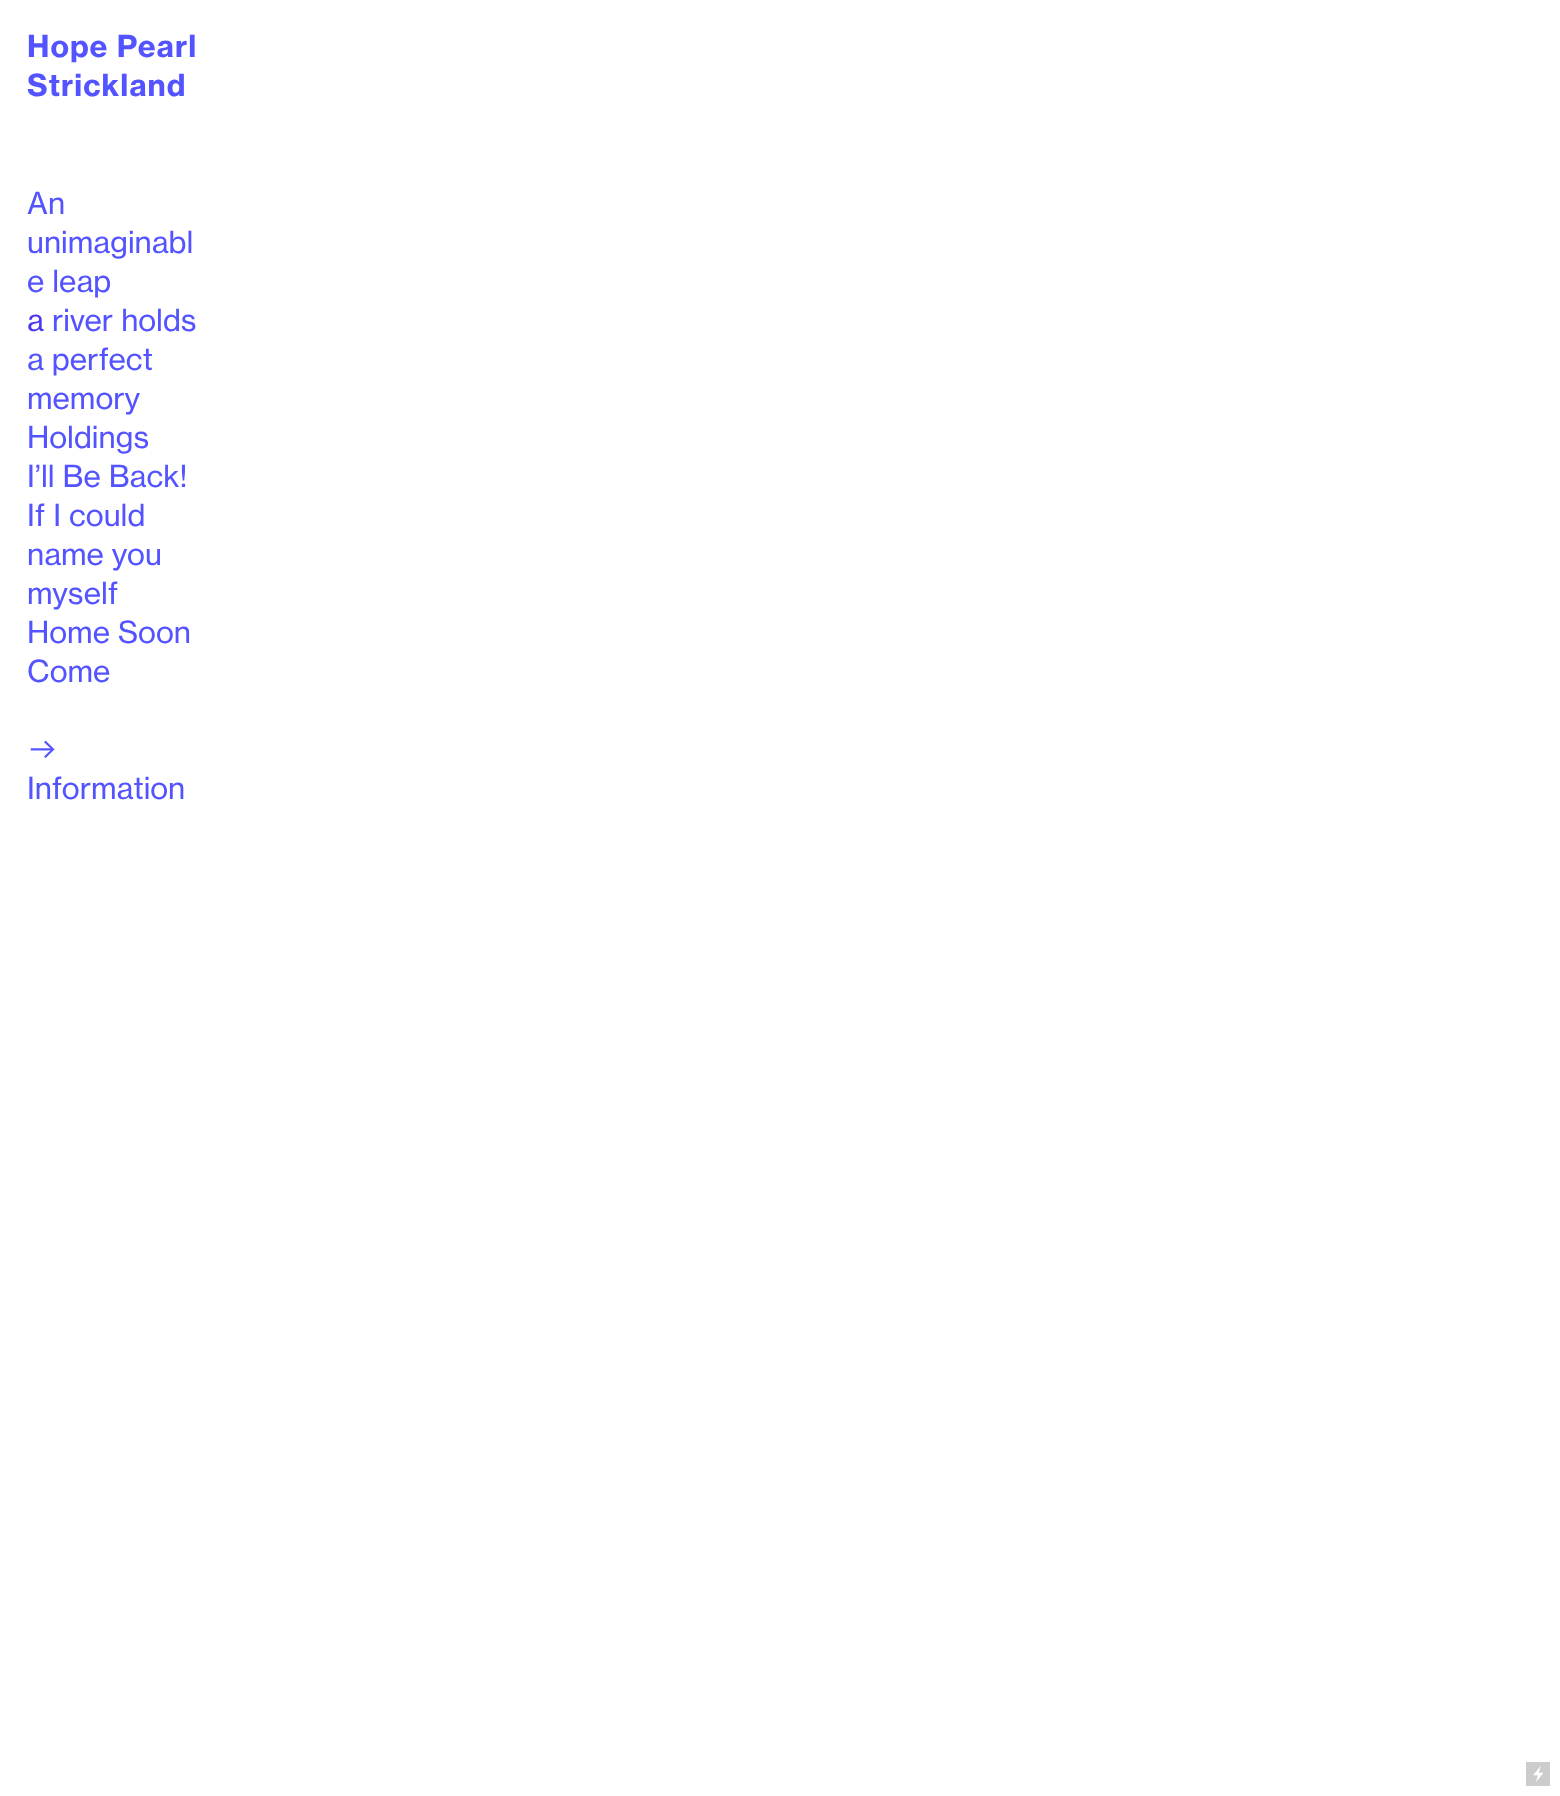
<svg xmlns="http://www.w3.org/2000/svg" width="1560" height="1796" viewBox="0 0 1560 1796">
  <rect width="100%" height="100%" fill="rgb(255,255,255)"/>
  <g font-family="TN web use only" font-size="30" font-weight="bold" letter-spacing="1" fill="rgb(83,83,255)">
    <text>
      <tspan x="27" y="57">Hope Pearl</tspan>
      <tspan x="27" y="96">Strickland</tspan>
    </text>
  </g>
  <g font-family="TN web use only" font-size="30" fill="rgb(83,83,255)">
    <text>
      <tspan x="27" y="214">An</tspan>
      <tspan x="27" y="253">unimaginabl</tspan>
      <tspan x="27" y="292">e leap</tspan>
    </text>
  </g>
  <text x="27" y="331" font-family="TN web use only" font-size="30" fill="rgb(73,55,241)">a</text>
  <g font-family="TN web use only" font-size="30" fill="rgb(83,83,255)">
    <text x="52" y="331">river holds</text>
    <text>
      <tspan x="27" y="370">a perfect</tspan>
      <tspan x="27" y="409">memory</tspan>
      <tspan x="27" y="448">Holdings</tspan>
      <tspan x="27" y="487">I’ll Be Back!</tspan>
      <tspan x="27" y="526">If I could</tspan>
      <tspan x="27" y="565">name you</tspan>
      <tspan x="27" y="604">myself</tspan>
      <tspan x="27" y="643">Home Soon</tspan>
      <tspan x="27" y="682">Come</tspan>
    </text>
  </g>
  <image x="30" y="740" width="25" height="18" href="pic1.png"/>
  <text x="27" y="799" font-family="TN web use only" font-size="30" fill="rgb(83,83,255)">Information</text>
  <rect x="1526" y="1762" width="24" height="24" fill="rgb(204,204,204)"/>
  <image x="1533" y="1766" width="11" height="16" href="pic2.png"/>
</svg>
